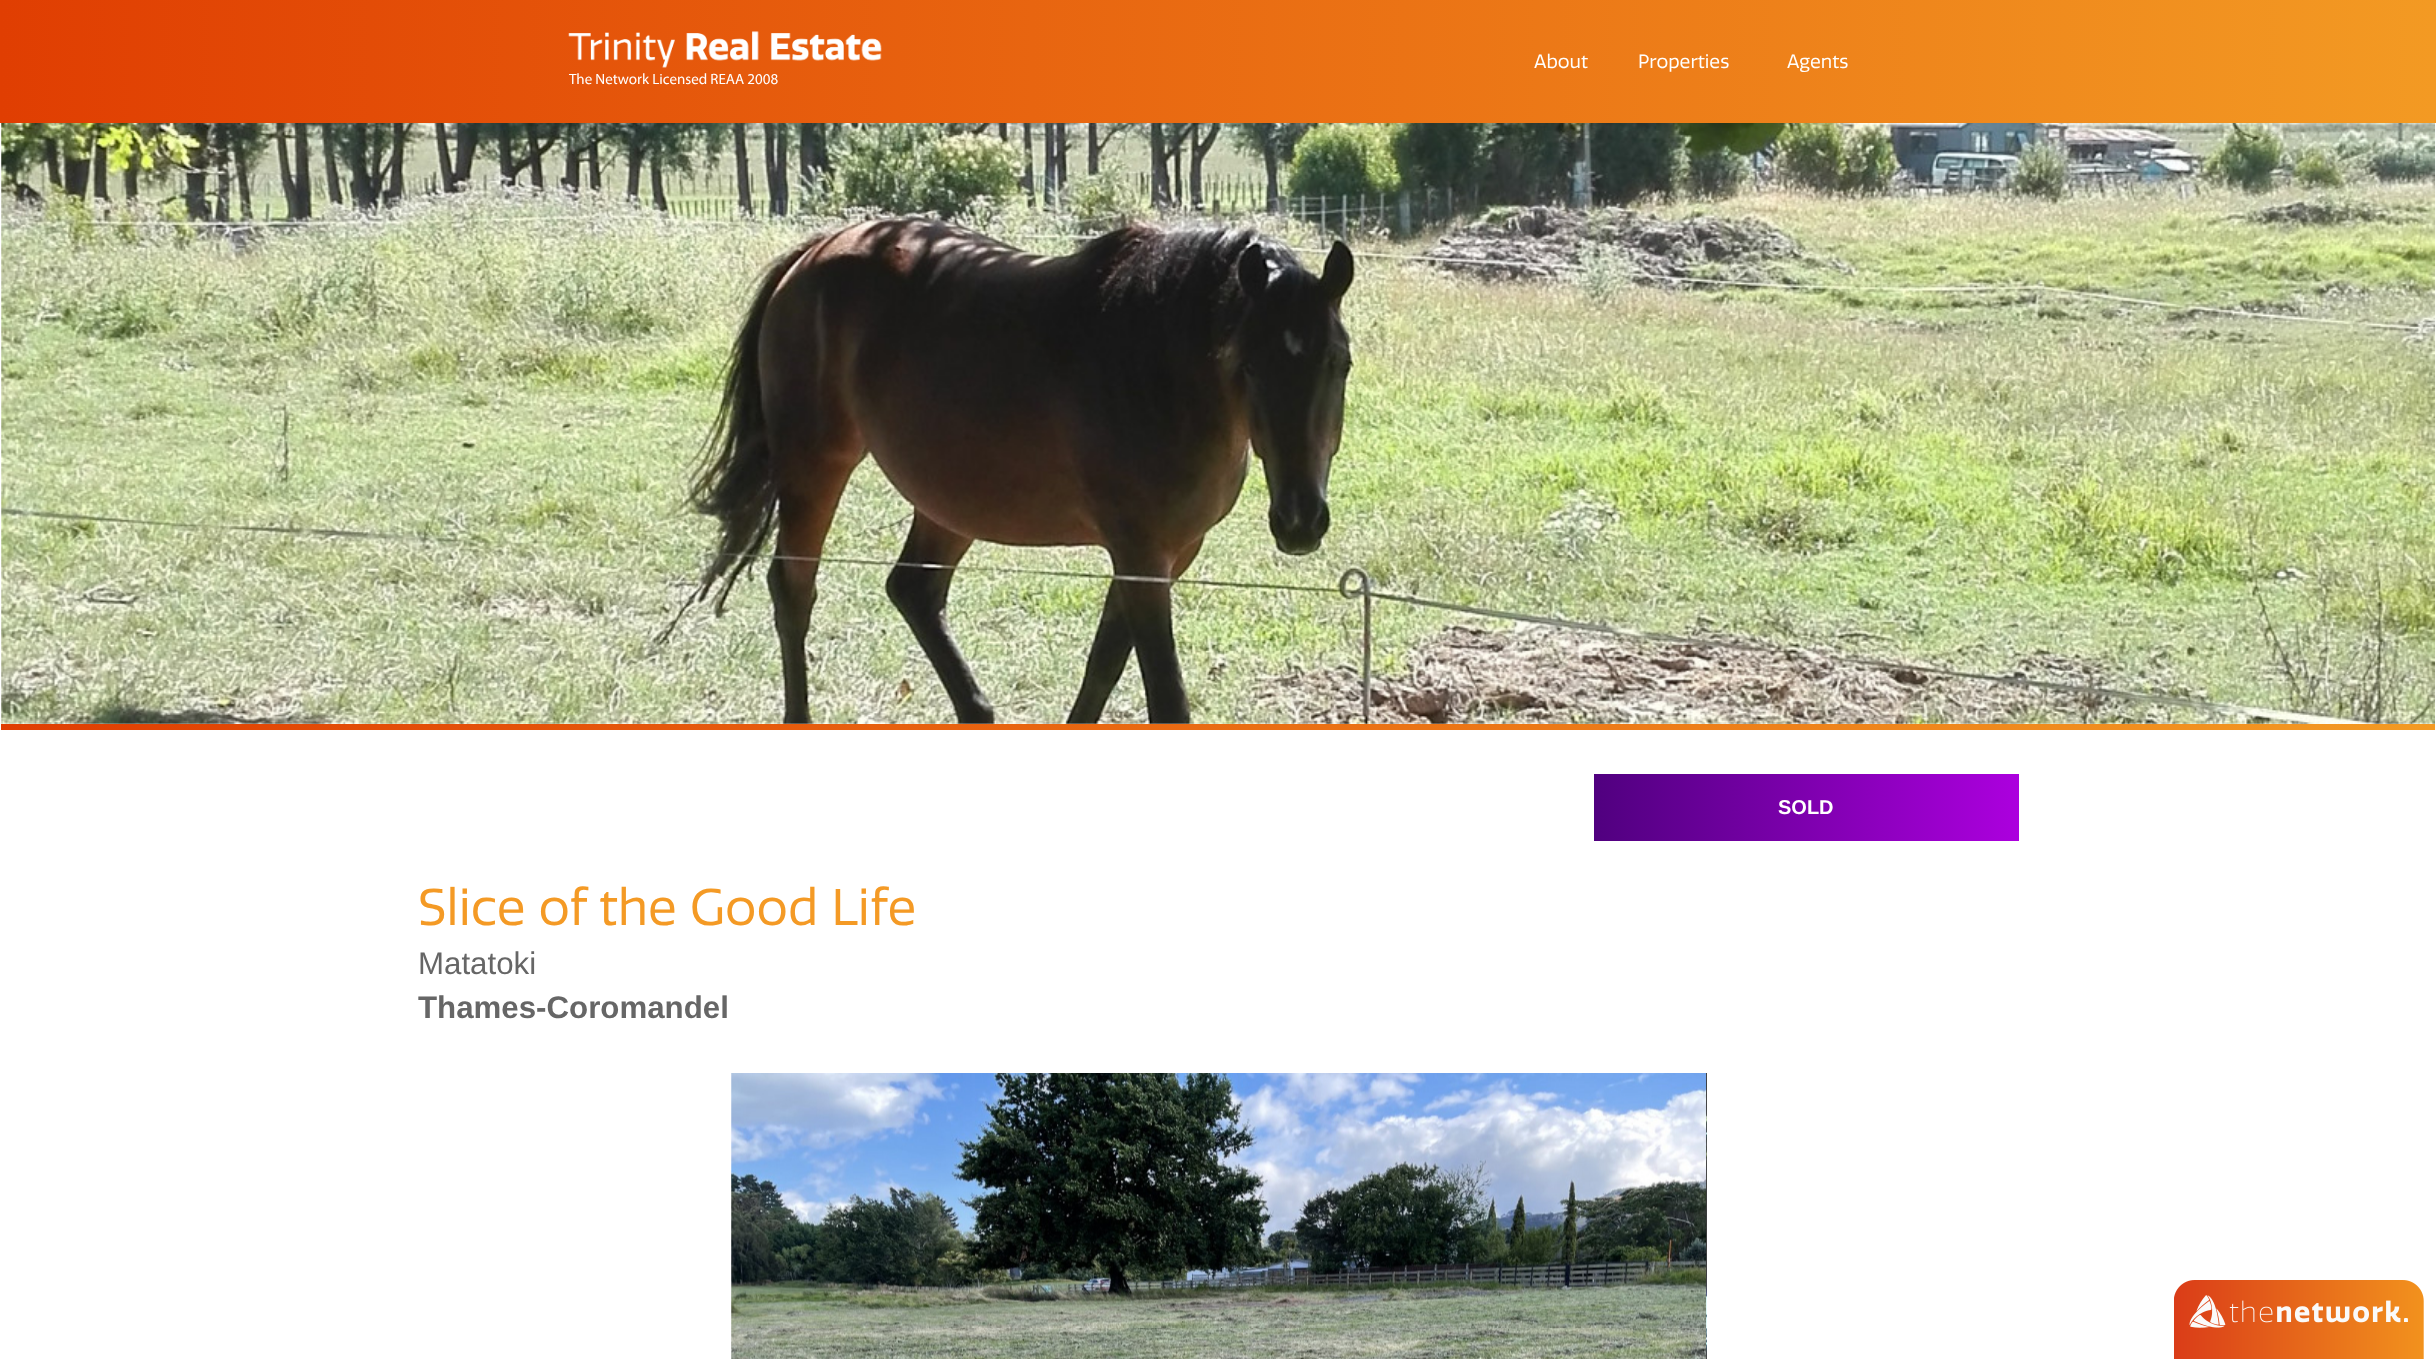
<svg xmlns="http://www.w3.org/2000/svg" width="2436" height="1359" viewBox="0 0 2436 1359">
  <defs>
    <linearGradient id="g1" gradientUnits="userSpaceOnUse" x1="0" y1="61" x2="2436" y2="61"><stop offset="0" stop-color="rgb(224,62,2)"/><stop offset="1" stop-color="rgb(243,154,35)"/></linearGradient>
    <linearGradient id="g2" gradientUnits="userSpaceOnUse" x1="1.2" y1="727" x2="2435" y2="727"><stop offset="0" stop-color="rgb(224,62,2)"/><stop offset="1" stop-color="rgb(243,154,35)"/></linearGradient>
    <linearGradient id="g3" gradientUnits="userSpaceOnUse" x1="1594" y1="808" x2="2019" y2="808"><stop offset="0" stop-color="rgb(80,0,127)"/><stop offset="1" stop-color="rgb(172,0,222)"/></linearGradient>
  </defs>
  <rect width="100%" height="100%" fill="rgb(255,255,255)"/>
  <rect x="0" y="0" width="2436" height="123" fill="url(#g1)"/>
  <g font-family="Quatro" font-size="18.75" fill="rgb(255,255,255)">
    <text x="1534" y="68">About</text>
    <text x="1638" y="68">Properties</text>
    <text x="1787" y="68">Agents</text>
  </g>
  <image x="568" y="31" width="314" height="37" href="pic1.png"/>
  <text x="569" y="84" font-family="myriad" font-size="15" fill="rgb(255,255,255)">The Network Licensed REAA 2008</text>
  <image x="1" y="123" width="2434" height="601" href="pic2.png"/>
  <rect x="1" y="724" width="2434" height="6" fill="url(#g2)"/>
  <rect x="1594" y="774" width="425" height="67" fill="url(#g3)"/>
  <text x="1778" y="814" font-family="Liberation Sans" font-size="20" font-weight="bold" fill="rgb(255,255,255)">SOLD</text>
  <text x="418" y="925" font-family="Quatro" font-size="50" fill="rgb(244,154,37)">Slice of the Good Life</text>
  <text x="418" y="974" font-family="Liberation Sans" font-size="31.25" fill="rgb(102,102,102)">Matatoki</text>
  <text x="418" y="1018" font-family="Liberation Sans" font-size="31.25" font-weight="bold" fill="rgb(102,102,102)">Thames-Coromandel</text>
  <image x="731" y="1073" width="976" height="286" href="pic3.png"/>
  <image x="1706" y="1073" width="1" height="286" href="pic4.png"/>
  <image x="2174" y="1280" width="250" height="79" href="pic5.png"/>
</svg>
